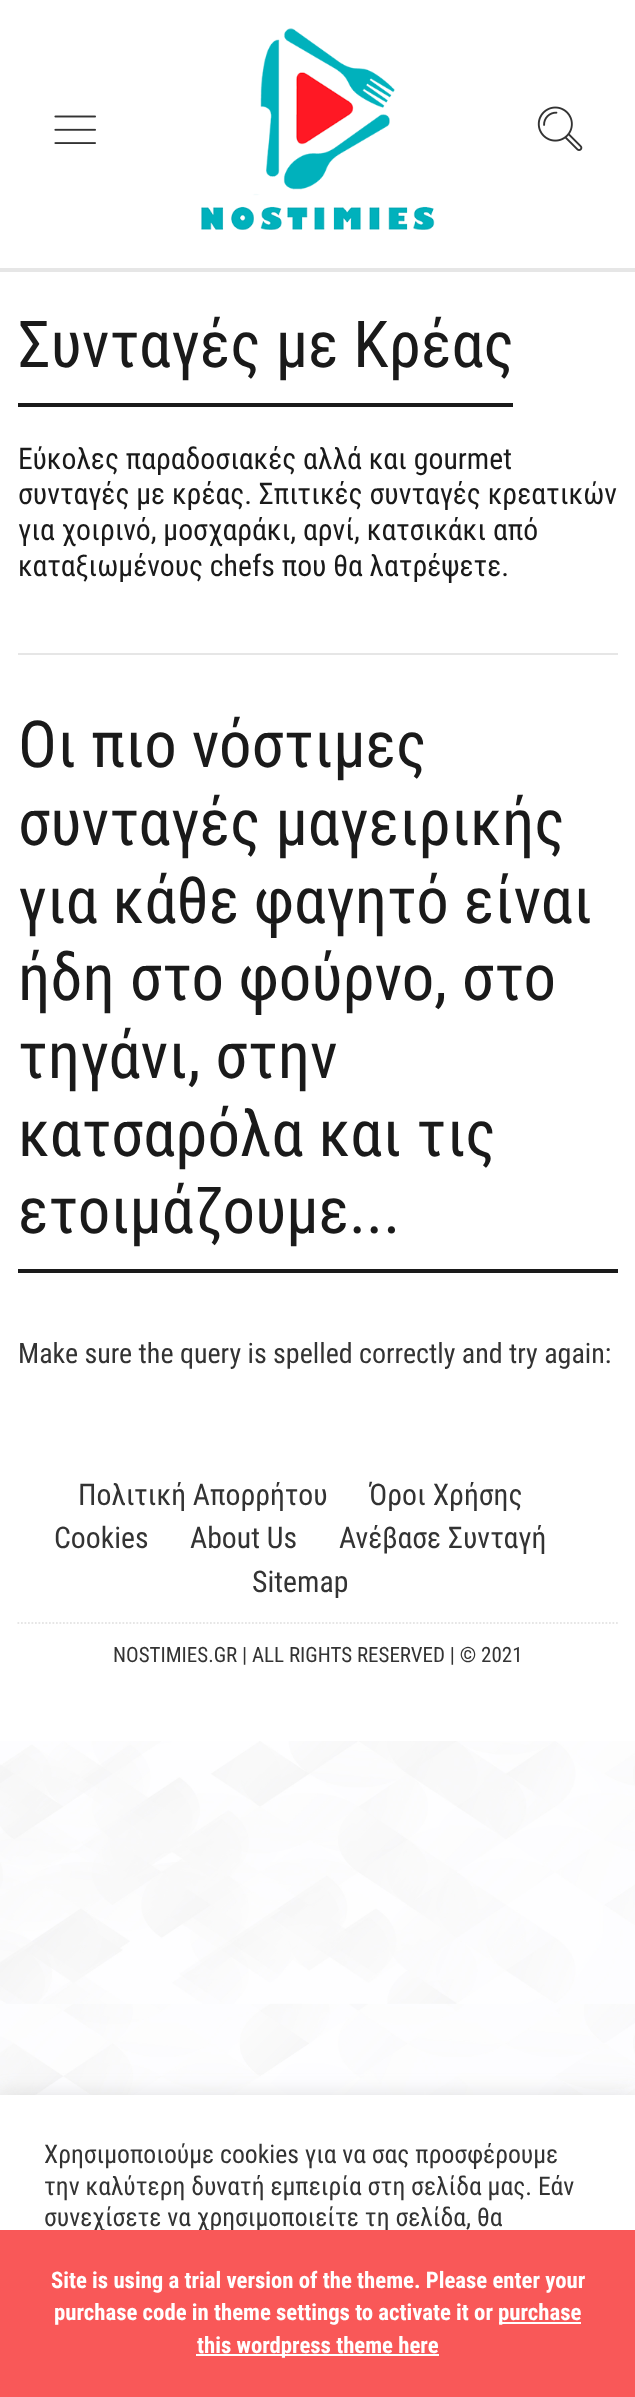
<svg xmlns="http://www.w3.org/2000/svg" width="635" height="2397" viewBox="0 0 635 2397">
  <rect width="100%" height="100%" fill="rgb(255,255,255)"/>
  <image x="0" y="1741" width="635" height="354" href="pic1.png"/>
  <image x="54" y="115" width="42" height="29" href="pic2.png"/>
  <image x="201" y="28" width="234" height="202" href="pic3.png"/>
  <image x="537" y="106" width="46" height="45" href="pic4.png"/>
  <rect x="0" y="268" width="635" height="4" fill="rgb(230,230,230)"/>
  <rect x="18" y="653" width="600" height="2" fill="rgb(230,230,230)"/>
  <rect x="18" y="403" width="495" height="4" fill="rgb(26,26,26)"/>
  <text x="18" y="367" font-family="Roboto Condensed" font-size="64.75" fill="rgb(26,26,26)">Συνταγές με Κρέας</text>
  <g font-family="Roboto Condensed" font-size="29.75" fill="rgb(26,26,26)">
    <text>
      <tspan x="18" y="469">Εύκολες παραδοσιακές αλλά και gourmet</tspan>
      <tspan x="18" y="504">συνταγές με κρέας. Σπιτικές συνταγές κρεατικών</tspan>
      <tspan x="18" y="540">για χοιρινό, μοσχαράκι, αρνί, κατσικάκι από</tspan>
      <tspan x="18" y="576">καταξιωμένους chefs που θα λατρέψετε.</tspan>
    </text>
  </g>
  <rect x="18" y="1269" width="600" height="4" fill="rgb(26,26,26)"/>
  <g font-family="Roboto Condensed" font-size="64.75" fill="rgb(26,26,26)">
    <text>
      <tspan x="18" y="767">Οι πιο νόστιμες</tspan>
      <tspan x="18" y="845">συνταγές μαγειρικής</tspan>
      <tspan x="18" y="923">για κάθε φαγητό είναι</tspan>
      <tspan x="18" y="1000">ήδη στο φούρνο, στο</tspan>
      <tspan x="18" y="1078">τηγάνι, στην</tspan>
      <tspan x="18" y="1156">κατσαρόλα και τις</tspan>
      <tspan x="18" y="1233">ετοιμάζουμε...</tspan>
    </text>
  </g>
  <text x="18" y="1363" font-family="Roboto Condensed" font-size="28" fill="rgb(51,51,51)">Make sure the query is spelled correctly and try again:</text>
  <g font-family="Roboto Condensed" font-size="29.75" fill="rgb(51,51,51)">
    <text x="78" y="1505">Πολιτική Απορρήτου</text>
    <text x="369" y="1505">Όροι Χρήσης</text>
    <text x="54" y="1548">Cookies</text>
    <text x="190" y="1548">About Us</text>
    <text x="339" y="1548">Ανέβασε Συνταγή</text>
    <text x="252" y="1592">Sitemap</text>
  </g>
  <path d="M17.5 1623H618" fill="none" stroke="rgb(230,230,230)" stroke-width="1.8" stroke-dasharray="1.75 1.75"/>
  <text x="113" y="1662" font-family="Roboto Condensed" font-size="21" fill="rgb(51,51,51)">NOSTIMIES.GR | ALL RIGHTS RESERVED | © 2021</text>
  <rect x="0" y="2093" width="635" height="303" fill="rgba(172,171,171,0.3)" filter="blur(9px)"/>
  <rect x="0" y="2095" width="635" height="135" fill="rgb(255,255,255)"/>
  <g font-family="Roboto Condensed" font-size="25.7" fill="rgb(51,51,51)">
    <text>
      <tspan x="44" y="2163">Χρησιμοποιούμε cookies για να σας προσφέρουμε</tspan>
      <tspan x="44" y="2195">την καλύτερη δυνατή εμπειρία στη σελίδα μας. Εάν</tspan>
      <tspan x="44" y="2226">συνεχίσετε να χρησιμοποιείτε τη σελίδα, θα</tspan>
    </text>
  </g>
  <rect x="0" y="2230" width="635" height="167" fill="rgb(249,88,88)"/>
  <g font-family="Roboto Condensed" font-size="22.75" font-weight="bold" fill="rgb(255,255,255)">
    <text x="51" y="2288">Site is using a trial version of the theme. Please enter your</text>
    <text x="54" y="2320">purchase code in theme settings to activate it or</text>
  </g>
  <rect x="499" y="2322" width="82" height="2" fill="rgb(255,255,255)"/>
  <text x="498" y="2320" font-family="Roboto Condensed" font-size="22.75" font-weight="bold" fill="rgb(255,255,255)">purchase</text>
  <rect x="196" y="2354" width="243" height="2" fill="rgb(255,255,255)"/>
  <text x="197" y="2353" font-family="Roboto Condensed" font-size="22.75" font-weight="bold" fill="rgb(255,255,255)">this wordpress theme here</text>
</svg>
